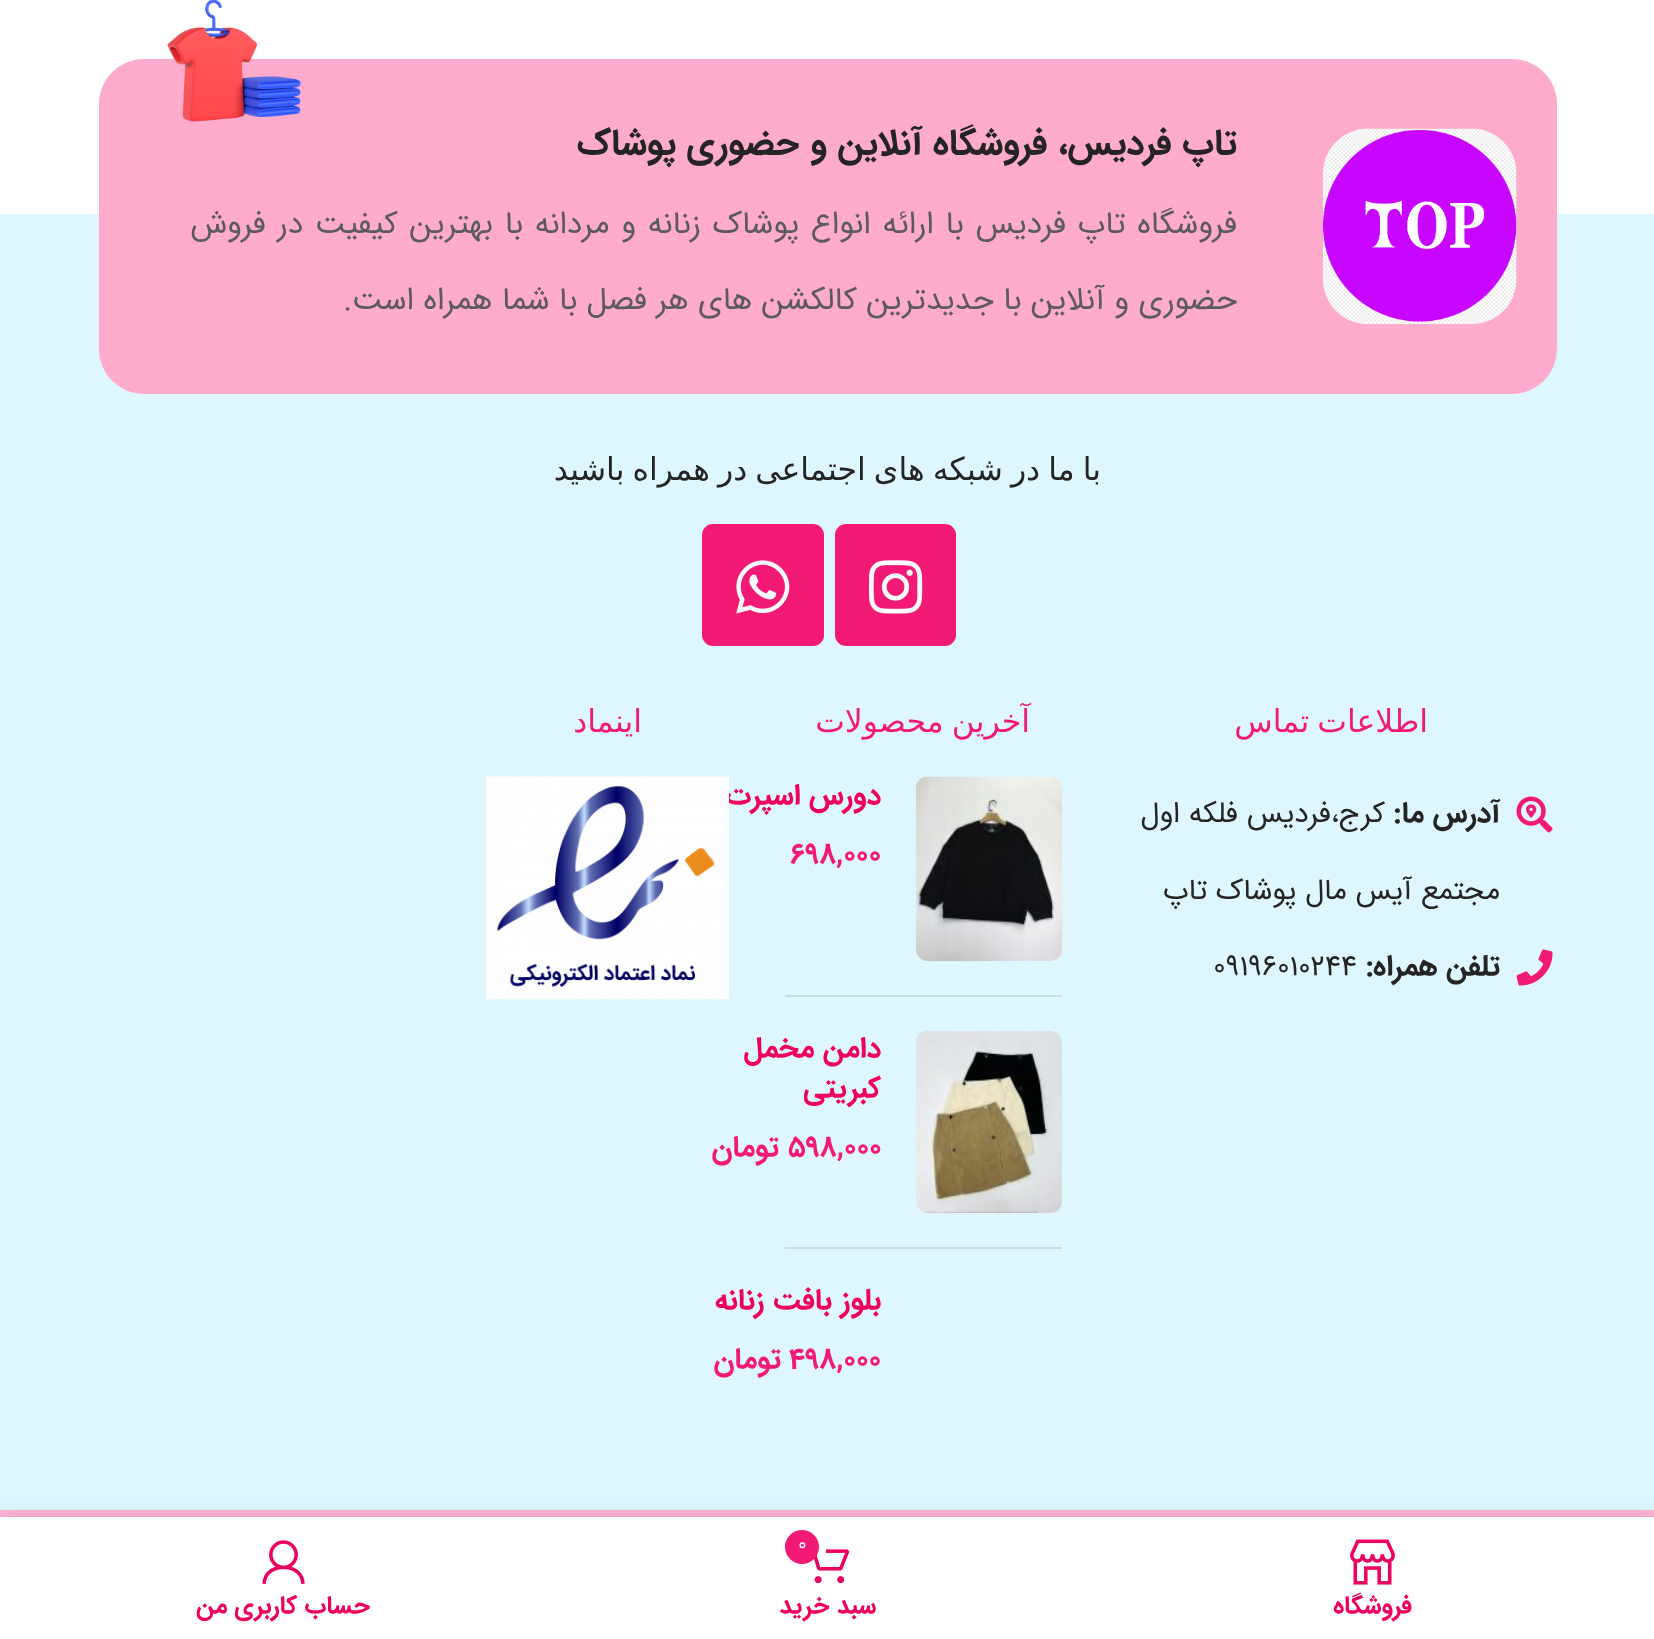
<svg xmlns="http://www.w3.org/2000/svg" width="1654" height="1639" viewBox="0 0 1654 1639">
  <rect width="100%" height="100%" fill="rgb(255,255,255)"/>
  <rect x="0" y="214" width="1654" height="1296" fill="rgb(222,247,255)"/>
  <rect x="99" y="59" width="1458" height="335" rx="45" fill="rgb(255,171,206)"/>
  <image x="1323" y="128" width="194" height="197" href="pic1.png"/>
  <image x="167" y="0" width="134" height="122" href="pic2.png"/>
  <text x="1237" y="154" font-family="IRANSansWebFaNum" font-size="36" font-weight="bold" direction="rtl" fill="rgb(36,36,36)">تاپ فردیس، فروشگاه آنلاین و حضوری پوشاک</text>
  <g font-family="IRANSansWebFaNum" font-size="31.5" direction="rtl" fill="rgb(91,91,91)">
    <text x="1237" y="233" word-spacing="2.25">فروشگاه تاپ فردیس با ارائه انواع پوشاک زنانه و مردانه با بهترین کیفیت در فروش</text>
    <text x="1237" y="309">حضوری و آنلاین با جدیدترین کالکشن های هر فصل با شما همراه است.</text>
  </g>
  <text x="1101" y="480" word-spacing="-2" font-family="DejaVu Sans" font-size="31.5" direction="rtl" fill="rgb(36,36,36)">با ما در شبکه های اجتماعی در همراه باشید</text>
  <rect x="835" y="524" width="121" height="122" rx="11" fill="rgb(242,26,116)"/>
  <image x="868" y="560" width="55" height="54" href="pic3.png"/>
  <rect x="702" y="524" width="122" height="122" rx="11" fill="rgb(242,26,116)"/>
  <image x="736" y="560" width="54" height="54" href="pic4.png"/>
  <text x="1428" y="732" word-spacing="-2" font-family="DejaVu Sans" font-size="31.5" direction="rtl" fill="rgb(242,26,116)">اطلاعات تماس</text>
  <image x="1516" y="796" width="37" height="37" href="pic5.png"/>
  <text x="1500" y="822" font-family="IRANSansWebFaNum" font-size="29.25" font-weight="bold" direction="rtl" fill="rgb(36,36,36)">آدرس ما:</text>
  <g font-family="IRANSansWebFaNum" font-size="29.25" direction="rtl" fill="rgb(36,36,36)">
    <text x="1385" y="822">کرج،فردیس فلکه اول</text>
    <text x="1500" y="899">مجتمع آیس مال پوشاک تاپ</text>
  </g>
  <image x="1516" y="949" width="37" height="37" href="pic6.png"/>
  <text x="1500" y="975" font-family="IRANSansWebFaNum" font-size="29.25" font-weight="bold" direction="rtl" fill="rgb(36,36,36)">تلفن همراه:</text>
  <text x="1213" y="975" font-family="IRANSansWebFaNum" font-size="29.25" fill="rgb(36,36,36)">09196010244</text>
  <text x="1030" y="732" word-spacing="-2" font-family="DejaVu Sans" font-size="31.5" direction="rtl" fill="rgb(242,26,116)">آخرین محصولات</text>
  <rect x="785" y="995" width="277" height="2" fill="rgb(198,221,228)"/>
  <image x="916" y="776" width="146" height="185" href="pic7.png"/>
  <text x="881" y="804" font-family="IRANSansWebFaNum" font-size="29.25" font-weight="bold" direction="rtl" fill="rgb(237,0,94)">دورس اسپرت</text>
  <text x="790" y="863" font-family="IRANSansWebFaNum" font-size="29.25" font-weight="bold" fill="rgb(242,26,116)">698,000</text>
  <rect x="785" y="1247" width="277" height="2" fill="rgb(198,221,228)"/>
  <image x="916" y="1031" width="146" height="182" href="pic8.png"/>
  <g font-family="IRANSansWebFaNum" font-size="29.25" font-weight="bold" direction="rtl" fill="rgb(237,0,94)">
    <text>
      <tspan x="881" y="1057">دامن مخمل</tspan>
      <tspan x="881" y="1097">کبریتی</tspan>
    </text>
  </g>
  <text x="788" y="1156" font-family="IRANSansWebFaNum" font-size="29.25" font-weight="bold" fill="rgb(242,26,116)">598,000</text>
  <text x="779" y="1156" font-family="IRANSansWebFaNum" font-size="29.25" font-weight="bold" direction="rtl" fill="rgb(242,26,116)">تومان</text>
  <text x="881" y="1309" font-family="IRANSansWebFaNum" font-size="29.25" font-weight="bold" direction="rtl" fill="rgb(237,0,94)">بلوز بافت زنانه</text>
  <text x="789" y="1368" font-family="IRANSansWebFaNum" font-size="29.25" font-weight="bold" fill="rgb(242,26,116)">498,000</text>
  <text x="781" y="1368" font-family="IRANSansWebFaNum" font-size="29.25" font-weight="bold" direction="rtl" fill="rgb(242,26,116)">تومان</text>
  <text x="642" y="732" font-family="DejaVu Sans" font-size="31.5" direction="rtl" fill="rgb(242,26,116)">اینماد</text>
  <image x="486" y="776" width="243" height="224" href="pic9.png"/>
  <rect x="0" y="1510" width="1654" height="7" fill="rgb(255,181,212)"/>
  <rect x="0" y="1517" width="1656" height="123" fill="rgba(0,0,0,0.12)" filter="blur(10px)"/>
  <rect x="0" y="1517" width="1654" height="122" fill="rgb(255,255,255)"/>
  <image x="1350" y="1539" width="45" height="46" href="pic10.png"/>
  <text x="1412" y="1613" font-family="IRANSansWebFaNum" font-size="24.75" font-weight="bold" direction="rtl" fill="rgb(237,0,94)">فروشگاه</text>
  <image x="814" y="1549" width="36" height="35" href="pic11.png"/>
  <circle cx="802" cy="1547" r="17" fill="rgb(242,26,116)"/>
  <text x="798" y="1550" font-family="IRANSansWebFaNum" font-size="20" fill="rgb(255,255,255)">0</text>
  <text x="876" y="1613" font-family="IRANSansWebFaNum" font-size="24.75" font-weight="bold" direction="rtl" fill="rgb(237,0,94)">سبد خرید</text>
  <image x="262" y="1540" width="43" height="44" href="pic12.png"/>
  <text x="370" y="1613" font-family="IRANSansWebFaNum" font-size="24.75" font-weight="bold" direction="rtl" fill="rgb(237,0,94)">حساب کاربری من</text>
</svg>
